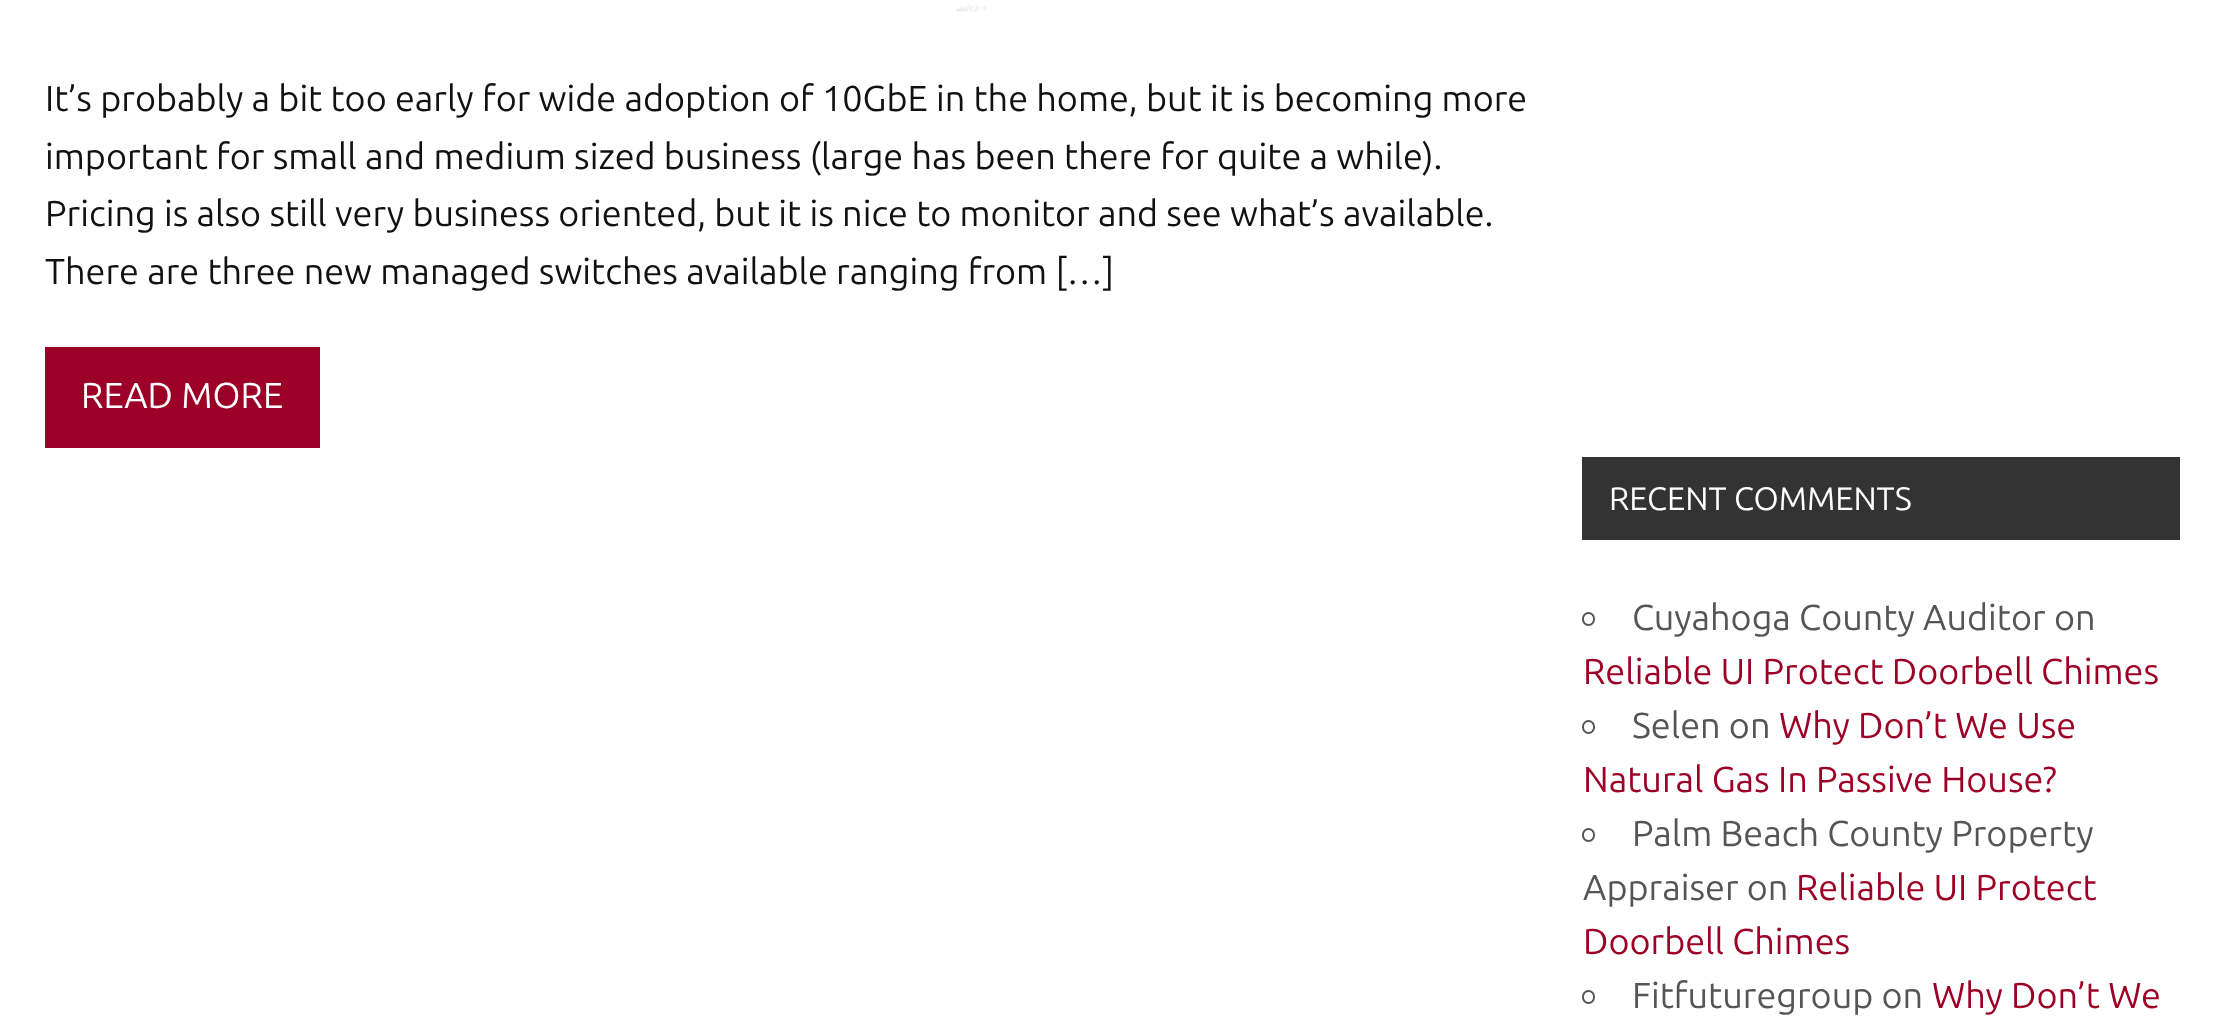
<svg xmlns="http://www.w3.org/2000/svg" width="2225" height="1030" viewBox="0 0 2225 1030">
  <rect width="100%" height="100%" fill="rgb(255,255,255)"/>
  <image x="956" y="4" width="30" height="8" href="pic1.png"/>
  <g font-family="Ubuntu" font-size="36" fill="rgb(17,17,17)">
    <text>
      <tspan x="45" y="111">It’s probably a bit too early for wide adoption of 10GbE in the home, but it is becoming more</tspan>
      <tspan x="45" y="169">important for small and medium sized business (large has been there for quite a while).</tspan>
      <tspan x="45" y="226">Pricing is also still very business oriented, but it is nice to monitor and see what’s available.</tspan>
      <tspan x="45" y="284">There are three new managed switches available ranging from […]</tspan>
    </text>
  </g>
  <rect x="45" y="347" width="275" height="101" fill="rgb(156,0,38)"/>
  <text x="81" y="408" font-family="Ubuntu" font-size="36" fill="rgb(255,255,255)">READ MORE</text>
  <rect x="1582" y="457" width="598" height="83" fill="rgb(51,51,51)"/>
  <text x="1609" y="510" font-family="Ubuntu" font-size="32.5" fill="rgb(255,255,255)">RECENT COMMENTS</text>
  <rect x="1583" y="613" width="11" height="12" rx="5.5" fill="none" stroke="rgb(85,85,85)" stroke-width="2"/>
  <text x="1632" y="630" font-family="Ubuntu" font-size="36" fill="rgb(85,85,85)">Cuyahoga County Auditor on</text>
  <text x="1583" y="684" font-family="Ubuntu" font-size="36" fill="rgb(156,0,38)">Reliable UI Protect Doorbell Chimes</text>
  <rect x="1583" y="721" width="11" height="12" rx="5.5" fill="none" stroke="rgb(85,85,85)" stroke-width="2"/>
  <text x="1632" y="738" font-family="Ubuntu" font-size="36" fill="rgb(85,85,85)">Selen on</text>
  <g font-family="Ubuntu" font-size="36" fill="rgb(156,0,38)">
    <text x="1779" y="738">Why Don’t We Use</text>
    <text x="1583" y="792">Natural Gas In Passive House?</text>
  </g>
  <rect x="1583" y="829" width="11" height="12" rx="5.5" fill="none" stroke="rgb(85,85,85)" stroke-width="2"/>
  <g font-family="Ubuntu" font-size="36" fill="rgb(85,85,85)">
    <text x="1632" y="846">Palm Beach County Property</text>
    <text x="1583" y="900">Appraiser on</text>
  </g>
  <g font-family="Ubuntu" font-size="36" fill="rgb(156,0,38)">
    <text x="1796" y="900">Reliable UI Protect</text>
    <text x="1583" y="954">Doorbell Chimes</text>
  </g>
  <rect x="1583" y="991" width="11" height="12" rx="5.5" fill="none" stroke="rgb(85,85,85)" stroke-width="2"/>
  <text x="1632" y="1008" font-family="Ubuntu" font-size="36" fill="rgb(85,85,85)">Fitfuturegroup on</text>
  <text x="1932" y="1008" font-family="Ubuntu" font-size="36" fill="rgb(156,0,38)">Why Don’t We</text>
</svg>
